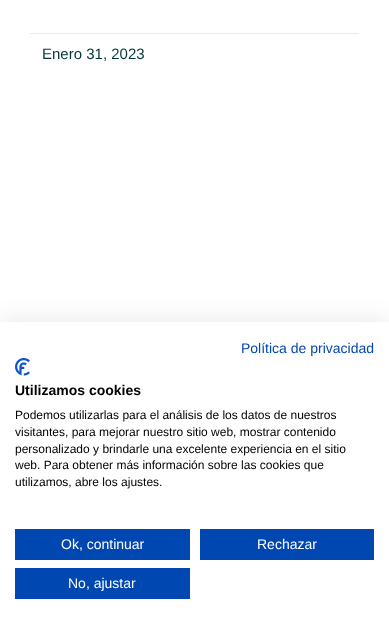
<svg xmlns="http://www.w3.org/2000/svg" width="389" height="626" viewBox="0 0 389 626">
  <rect width="100%" height="100%" fill="rgb(255,255,255)"/>
  <rect x="30" y="33" width="329" height="1" fill="rgb(234,234,234)"/>
  <text x="42" y="59" font-family="Liberation Sans" font-size="15" fill="rgb(3,53,55)">Enero 31, 2023</text>
  <rect x="0" y="322" width="389" height="304" fill="rgba(0,0,0,0.1)" filter="blur(12px)"/>
  <rect x="0" y="322" width="389" height="304" fill="rgb(255,255,255)"/>
  <text x="241" y="353" font-family="Liberation Sans" font-size="14" fill="rgb(0,71,178)">Política de privacidad</text>
  <image x="15" y="358" width="15" height="18" href="pic1.png"/>
  <text x="15" y="395" font-family="Liberation Sans" font-size="14" font-weight="bold" fill="rgb(0,0,0)">Utilizamos cookies</text>
  <g font-family="Liberation Sans" font-size="12" fill="rgb(0,0,0)">
    <text>
      <tspan x="15" y="419">Podemos utilizarlas para el análisis de los datos de nuestros</tspan>
      <tspan x="15" y="436">visitantes, para mejorar nuestro sitio web, mostrar contenido</tspan>
      <tspan x="15" y="453">personalizado y brindarle una excelente experiencia en el sitio</tspan>
      <tspan x="15" y="469">web. Para obtener más información sobre las cookies que</tspan>
      <tspan x="15" y="486">utilizamos, abre los ajustes.</tspan>
    </text>
  </g>
  <rect x="15" y="529" width="175" height="31" fill="rgb(0,71,178)"/>
  <text x="61" y="549" font-family="Liberation Sans" font-size="14" fill="rgb(255,255,255)">Ok, continuar</text>
  <rect x="200" y="529" width="174" height="31" fill="rgb(0,71,178)"/>
  <text x="257" y="549" font-family="Liberation Sans" font-size="14" fill="rgb(255,255,255)">Rechazar</text>
  <rect x="15" y="568" width="175" height="31" fill="rgb(0,71,178)"/>
  <text x="68" y="588" font-family="Liberation Sans" font-size="14" fill="rgb(255,255,255)">No, ajustar</text>
</svg>
